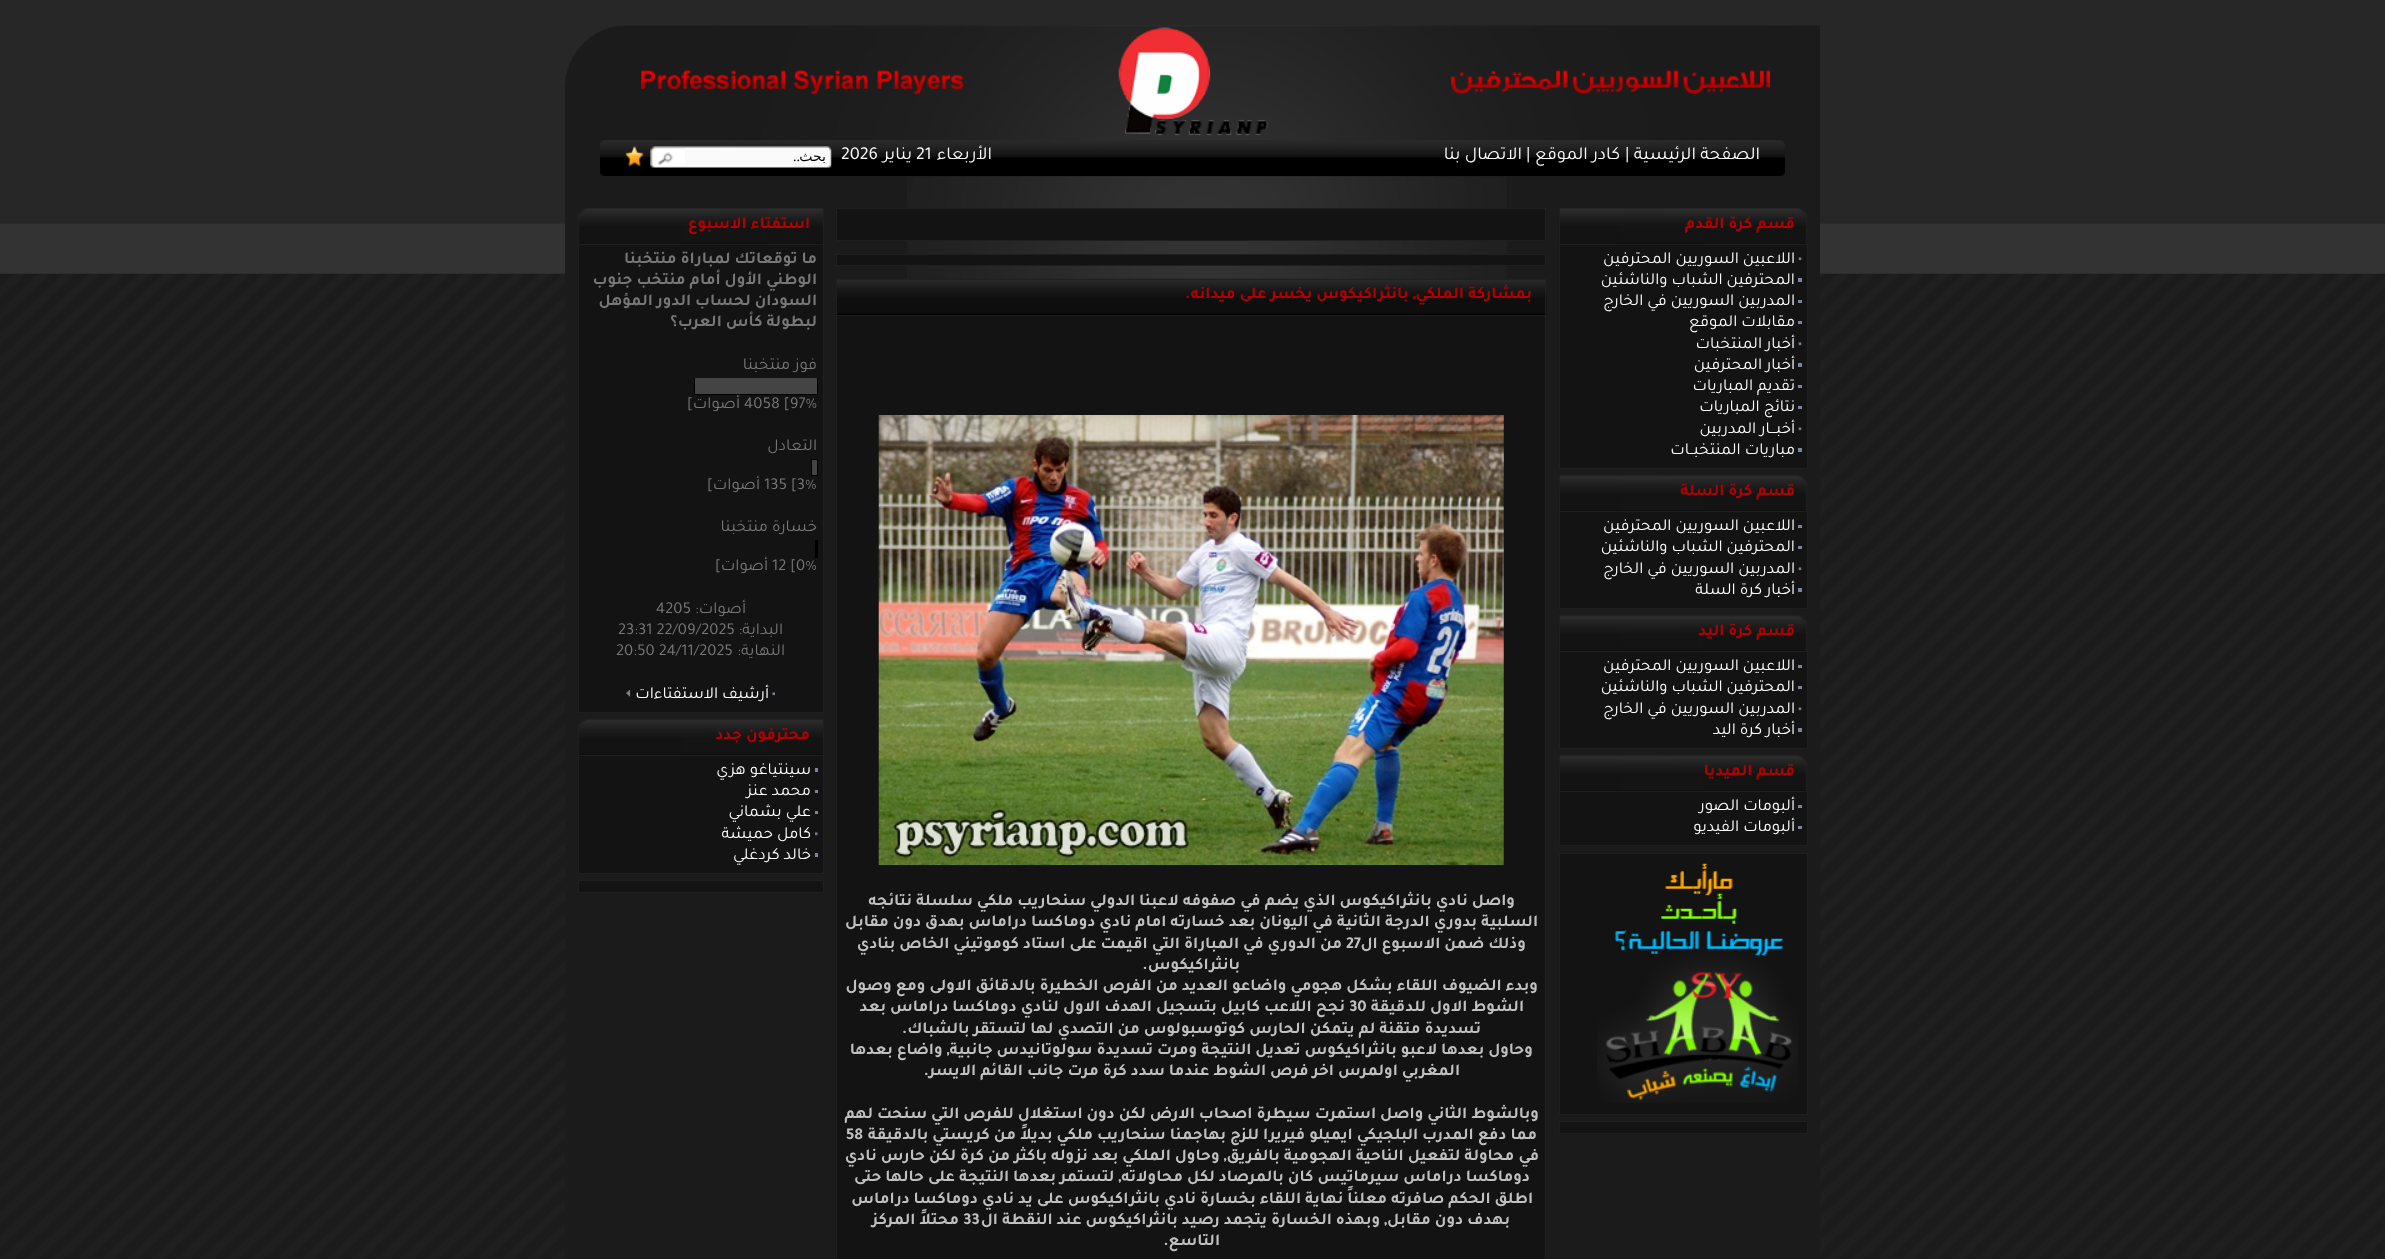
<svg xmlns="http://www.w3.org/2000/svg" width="2385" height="1259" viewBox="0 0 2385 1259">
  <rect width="100%" height="100%" fill="rgb(255,255,255)"/>
  <image x="0" y="273" width="2385" height="986" href="pic1.png"/>
  <image x="0" y="0" width="2385" height="274" href="pic2.png"/>
  <image x="565" y="25" width="1255" height="151" href="pic3.png"/>
  <image x="1451" y="70" width="319" height="24" href="pic4.png"/>
  <image x="1118" y="27" width="151" height="109" href="pic5.png"/>
  <image x="641" y="69" width="323" height="27" href="pic6.png"/>
  <image x="600" y="140" width="1185" height="36" href="pic7.png"/>
  <text x="1760" y="159" font-family="Tajawal" font-size="18.25" direction="rtl" fill="rgb(255,255,255)">الصفحة الرئيسية</text>
  <text x="1625" y="159" font-family="Tajawal" font-size="18.25" fill="rgb(255,255,255)">|</text>
  <text x="1620" y="159" font-family="Tajawal" font-size="18.25" direction="rtl" fill="rgb(255,255,255)">كادر الموقع</text>
  <text x="1526" y="159" font-family="Tajawal" font-size="18.25" fill="rgb(255,255,255)">|</text>
  <g font-family="Tajawal" font-size="18.25" direction="rtl" fill="rgb(255,255,255)">
    <text x="1522" y="159">الاتصال بنا</text>
    <text x="992" y="159">الأربعاء</text>
  </g>
  <text x="916" y="159" font-family="Tajawal" font-size="18.25" fill="rgb(255,255,255)">21</text>
  <text x="912" y="159" font-family="Tajawal" font-size="18.25" direction="rtl" fill="rgb(255,255,255)">يناير</text>
  <text x="841" y="159" font-family="Tajawal" font-size="18.25" fill="rgb(255,255,255)">2026</text>
  <image x="650" y="146" width="182" height="22" href="pic8.png"/>
  <rect x="685" y="148" width="144" height="17" fill="rgb(250,250,250)"/>
  <text x="826" y="161" font-family="DejaVu Sans" font-size="14" direction="rtl" fill="rgb(0,0,0)">بحث</text>
  <text x="800" y="161" font-family="Liberation Serif" font-size="14" direction="rtl" fill="rgb(0,0,0)">..</text>
  <image x="625" y="146" width="19" height="21" href="pic9.png"/>
  <rect x="565" y="176" width="1255" height="1083" fill="rgb(27,27,27)"/>
  <image x="907" y="176" width="600" height="103" href="pic10.png"/>
  <image x="1558" y="208" width="249" height="36" href="pic11.png"/>
  <rect x="1559" y="208" width="1" height="36" fill="rgb(31,31,31)"/>
  <text x="1795" y="228" font-family="Tajawal" font-size="16.65" font-weight="bold" direction="rtl" fill="rgb(181,0,0)">قسم كرة القدم</text>
  <rect x="1559.5" y="244.5" width="248" height="224" fill="rgb(19,19,19)" stroke="rgb(31,31,31)"/>
  <image x="1798" y="257" width="4" height="4" href="pic12.png"/>
  <text x="1795" y="263" font-family="Tajawal" font-size="16.65" direction="rtl" fill="rgb(255,255,255)">اللاعبين السوريين المحترفين</text>
  <rect x="1798" y="278" width="4" height="4" fill="rgb(126,133,153)"/>
  <text x="1795" y="284" font-family="Tajawal" font-size="16.65" direction="rtl" fill="rgb(255,255,255)">المحترفين الشباب والناشئين</text>
  <rect x="1798" y="300" width="4" height="3" fill="rgb(126,133,153)"/>
  <text x="1795" y="305" font-family="Tajawal" font-size="16.65" direction="rtl" fill="rgb(255,255,255)">المدربين السوريين في الخارج</text>
  <rect x="1798" y="321" width="4" height="3" fill="rgb(126,133,153)"/>
  <text x="1795" y="326" font-family="Tajawal" font-size="16.65" direction="rtl" fill="rgb(255,255,255)">مقابلات الموقع</text>
  <image x="1798" y="342" width="4" height="4" href="pic12.png"/>
  <text x="1795" y="348" font-family="Tajawal" font-size="16.65" direction="rtl" fill="rgb(255,255,255)">أخبار المنتخبات</text>
  <rect x="1798" y="363" width="4" height="4" fill="rgb(126,133,153)"/>
  <text x="1795" y="369" font-family="Tajawal" font-size="16.65" direction="rtl" fill="rgb(255,255,255)">أخبار المحترفين</text>
  <rect x="1798" y="385" width="4" height="3" fill="rgb(126,133,153)"/>
  <text x="1795" y="390" font-family="Tajawal" font-size="16.65" direction="rtl" fill="rgb(255,255,255)">تقديم المباريات</text>
  <rect x="1798" y="406" width="4" height="3" fill="rgb(126,133,153)"/>
  <text x="1795" y="411" font-family="Tajawal" font-size="16.65" direction="rtl" fill="rgb(255,255,255)">نتائج المباريات</text>
  <image x="1798" y="427" width="4" height="4" href="pic12.png"/>
  <text x="1795" y="433" font-family="Tajawal" font-size="16.65" direction="rtl" fill="rgb(255,255,255)">أخبـــار المدربين</text>
  <rect x="1798" y="448" width="4" height="4" fill="rgb(126,133,153)"/>
  <text x="1795" y="454" font-family="Tajawal" font-size="16.65" direction="rtl" fill="rgb(255,255,255)">مباريات المنتخبــات</text>
  <image x="1558" y="475" width="249" height="36" href="pic13.png"/>
  <rect x="1559" y="475" width="1" height="36" fill="rgb(31,31,31)"/>
  <text x="1795" y="495" font-family="Tajawal" font-size="16.65" font-weight="bold" direction="rtl" fill="rgb(181,0,0)">قسم كرة السلة</text>
  <rect x="1559.5" y="511.5" width="248" height="97" fill="rgb(19,19,19)" stroke="rgb(31,31,31)"/>
  <rect x="1798" y="525" width="4" height="3" fill="rgb(126,133,153)"/>
  <text x="1795" y="530" font-family="Tajawal" font-size="16.65" direction="rtl" fill="rgb(255,255,255)">اللاعبين السوريين المحترفين</text>
  <rect x="1798" y="546" width="4" height="3" fill="rgb(126,133,153)"/>
  <text x="1795" y="551" font-family="Tajawal" font-size="16.65" direction="rtl" fill="rgb(255,255,255)">المحترفين الشباب والناشئين</text>
  <image x="1798" y="567" width="4" height="4" href="pic12.png"/>
  <text x="1795" y="573" font-family="Tajawal" font-size="16.65" direction="rtl" fill="rgb(255,255,255)">المدربين السوريين في الخارج</text>
  <rect x="1798" y="588" width="4" height="4" fill="rgb(126,133,153)"/>
  <text x="1795" y="594" font-family="Tajawal" font-size="16.65" direction="rtl" fill="rgb(255,255,255)">أخبار كرة السلة</text>
  <image x="1558" y="615" width="249" height="36" href="pic13.png"/>
  <rect x="1559" y="615" width="1" height="36" fill="rgb(31,31,31)"/>
  <text x="1795" y="635" font-family="Tajawal" font-size="16.65" font-weight="bold" direction="rtl" fill="rgb(181,0,0)">قسم كرة اليد</text>
  <rect x="1559.5" y="651.5" width="248" height="97" fill="rgb(19,19,19)" stroke="rgb(31,31,31)"/>
  <rect x="1798" y="665" width="4" height="3" fill="rgb(126,133,153)"/>
  <text x="1795" y="670" font-family="Tajawal" font-size="16.65" direction="rtl" fill="rgb(255,255,255)">اللاعبين السوريين المحترفين</text>
  <rect x="1798" y="686" width="4" height="3" fill="rgb(126,133,153)"/>
  <text x="1795" y="691" font-family="Tajawal" font-size="16.65" direction="rtl" fill="rgb(255,255,255)">المحترفين الشباب والناشئين</text>
  <image x="1798" y="707" width="4" height="4" href="pic12.png"/>
  <text x="1795" y="713" font-family="Tajawal" font-size="16.65" direction="rtl" fill="rgb(255,255,255)">المدربين السوريين في الخارج</text>
  <rect x="1798" y="728" width="4" height="4" fill="rgb(126,133,153)"/>
  <text x="1795" y="734" font-family="Tajawal" font-size="16.65" direction="rtl" fill="rgb(255,255,255)">أخبار كرة اليد</text>
  <image x="1558" y="755" width="249" height="36" href="pic13.png"/>
  <rect x="1559" y="755" width="1" height="36" fill="rgb(31,31,31)"/>
  <text x="1795" y="775" font-family="Tajawal" font-size="16.65" font-weight="bold" direction="rtl" fill="rgb(181,0,0)">قسم الميديا</text>
  <rect x="1559.5" y="791.5" width="248" height="54" fill="rgb(19,19,19)" stroke="rgb(31,31,31)"/>
  <rect x="1798" y="805" width="4" height="3" fill="rgb(126,133,153)"/>
  <text x="1795" y="810" font-family="Tajawal" font-size="16.65" direction="rtl" fill="rgb(255,255,255)">ألبومات الصور</text>
  <rect x="1798" y="826" width="4" height="3" fill="rgb(126,133,153)"/>
  <text x="1795" y="831" font-family="Tajawal" font-size="16.65" direction="rtl" fill="rgb(255,255,255)">ألبومات الفيديو</text>
  <rect x="1559.5" y="853.5" width="248" height="261" fill="rgb(19,19,19)" stroke="rgb(31,31,31)"/>
  <image x="1597" y="863" width="201" height="240" href="pic14.png"/>
  <rect x="1559.5" y="1121.5" width="248" height="12" fill="rgb(19,19,19)" stroke="rgb(31,31,31)"/>
  <rect x="836.5" y="208.5" width="709" height="32" fill="rgb(19,19,19)" stroke="rgb(31,31,31)"/>
  <rect x="836.5" y="254.5" width="709" height="11" fill="rgb(19,19,19)" stroke="rgb(31,31,31)"/>
  <image x="836" y="278" width="711" height="37" href="pic15.png"/>
  <rect x="1545" y="279" width="1" height="36" fill="rgb(31,31,31)"/>
  <rect x="836" y="279" width="1" height="36" fill="rgb(31,31,31)"/>
  <text x="1532" y="298" font-family="Tajawal" font-size="16.65" font-weight="bold" direction="rtl" fill="rgb(181,0,0)">بمشاركة الملكي, بانثراكيكوس يخسر على ميدانه.</text>
  <rect x="836.5" y="315.5" width="709" height="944" fill="rgb(19,19,19)" stroke="rgb(31,31,31)"/>
  <image x="878" y="415" width="626" height="450" href="pic16.png"/>
  <g font-family="Tajawal" font-size="16.65" font-weight="bold" direction="rtl" fill="rgb(192,192,192)">
    <text x="1515" y="905">واصل نادي بانثراكيكوس الذي يضم في صفوفه لاعبنا الدولي سنحاريب ملكي سلسلة نتائجه</text>
    <text x="1538" y="926">السلبية بدوري الدرجة الثانية في اليونان بعد خسارته امام نادي دوماكسا دراماس بهدق دون مقابل</text>
    <text x="1526" y="948">وذلك ضمن الاسبوع ال</text>
  </g>
  <text x="1346" y="948" font-family="Tajawal" font-size="16.65" font-weight="bold" fill="rgb(192,192,192)">27</text>
  <g font-family="Tajawal" font-size="16.65" font-weight="bold" direction="rtl" fill="rgb(192,192,192)">
    <text x="1342" y="948">من الدوري في المباراة التي اقيمت على استاد كوموتيني الخاص بنادي</text>
    <text x="1240" y="969">بانثراكيكوس.</text>
    <text x="1538" y="990">وبدء الضيوف اللقاء بشكل هجومي واضاعو العديد من الفرص الخطيرة بالدقائق الاولى ومع وصول</text>
    <text x="1524" y="1011">الشوط الاول للدقيقة</text>
  </g>
  <text x="1349" y="1011" font-family="Tajawal" font-size="16.65" font-weight="bold" fill="rgb(192,192,192)">30</text>
  <g font-family="Tajawal" font-size="16.65" font-weight="bold" direction="rtl" fill="rgb(192,192,192)">
    <text x="1345" y="1011">نجح اللاعب كابيل بتسجيل الهدف الاول لنادي دوماكسا دراماس بعد</text>
    <text x="1481" y="1033">تسديدة متقنة لم يتمكن الحارس كوتوسبولوس من التصدي لها لتستقر بالشباك.</text>
    <text x="1533" y="1054">وحاول بعدها لاعبو بانثراكيكوس تعديل النتيجة ومرت تسديدة سولوتانيدس جانبية, واضاع بعدها</text>
    <text x="1460" y="1075">المغربي اولمرس اخر فرص الشوط عندما سدد كرة مرت جانب القائم الايسر.</text>
    <text x="1539" y="1118">وبالشوط الثاني واصل استمرت سيطرة اصحاب الارض لكن دون استغلال للفرص التي سنحت لهم</text>
    <text x="1537" y="1139">مما دفع المدرب البلجيكي ايميلو فيريرا للزج بهاجمنا سنحاريب ملكي بديلاً من كريستي بالدقيقة</text>
  </g>
  <text x="846" y="1139" font-family="Tajawal" font-size="16.65" font-weight="bold" fill="rgb(192,192,192)">58</text>
  <g font-family="Tajawal" font-size="16.65" font-weight="bold" direction="rtl" fill="rgb(192,192,192)">
    <text x="1539" y="1160">في محاولة لتفعيل الناحية الهجومية بالفريق, وحاول الملكي بعد نزوله باكثر من كرة لكن حارس نادي</text>
    <text x="1530" y="1181">دوماكسا دراماس سيرماتيس كان بالمرصاد لكل محاولاته, لتستمر بعدها النتيجة على حالها حتى</text>
    <text x="1533" y="1203">اطلق الحكم صافرته معلناً نهاية اللقاء بخسارة نادي بانثراكيكوس على يد نادي دوماكسا دراماس</text>
    <text x="1510" y="1224">بهدف دون مقابل, وبهذه الخسارة يتجمد رصيد بانثراكيكوس عند النقطة ال</text>
  </g>
  <text x="963" y="1224" font-family="Tajawal" font-size="16.65" font-weight="bold" fill="rgb(192,192,192)">33</text>
  <g font-family="Tajawal" font-size="16.65" font-weight="bold" direction="rtl" fill="rgb(192,192,192)">
    <text x="959" y="1224">محتلاً المركز</text>
    <text x="1220" y="1245">التاسع.</text>
  </g>
  <image x="578" y="208" width="245" height="36" href="pic17.png"/>
  <rect x="823" y="208" width="1" height="36" fill="rgb(31,31,31)"/>
  <text x="810" y="228" font-family="Tajawal" font-size="16.65" font-weight="bold" direction="rtl" fill="rgb(181,0,0)">استفتاء الاسبوع</text>
  <rect x="578.5" y="244.5" width="245" height="468" fill="rgb(19,19,19)" stroke="rgb(31,31,31)"/>
  <g font-family="Tajawal" font-size="16.65" font-weight="bold" direction="rtl" fill="rgb(119,119,119)">
    <text>
      <tspan x="817" y="263">ما توقعاتك لمباراة منتخبنا</tspan>
      <tspan x="817" y="284">الوطني الأول أمام منتخب جنوب</tspan>
      <tspan x="817" y="305">السودان لحساب الدور المؤهل</tspan>
      <tspan x="817" y="326">لبطولة كأس العرب؟</tspan>
    </text>
  </g>
  <text x="817" y="369" font-family="Tajawal" font-size="16.65" direction="rtl" fill="rgb(119,119,119)">فوز منتخبنا</text>
  <rect x="694.5" y="378.5" width="123" height="16" fill="none" stroke="rgb(0,0,0)"/>
  <rect x="695" y="378" width="122" height="16" fill="rgb(68,68,68)"/>
  <text x="744" y="408" font-family="Tajawal" font-size="16.65" fill="rgb(119,119,119)">4058 [97%</text>
  <g font-family="Tajawal" font-size="16.65" direction="rtl" fill="rgb(119,119,119)">
    <text x="740" y="408">أصوات]</text>
    <text x="817" y="450">التعادل</text>
  </g>
  <rect x="811.5" y="459.5" width="6" height="16" fill="none" stroke="rgb(0,0,0)"/>
  <rect x="812" y="460" width="5" height="15" fill="rgb(68,68,68)"/>
  <text x="764" y="489" font-family="Tajawal" font-size="16.65" fill="rgb(119,119,119)">135 [3%</text>
  <g font-family="Tajawal" font-size="16.65" direction="rtl" fill="rgb(119,119,119)">
    <text x="760" y="489">أصوات]</text>
    <text x="817" y="531">خسارة منتخبنا</text>
  </g>
  <rect x="815" y="540" width="3" height="18" fill="rgb(0,0,0)"/>
  <text x="772" y="570" font-family="Tajawal" font-size="16.65" fill="rgb(119,119,119)">12 [0%</text>
  <g font-family="Tajawal" font-size="16.65" direction="rtl" fill="rgb(119,119,119)">
    <text x="768" y="570">أصوات]</text>
    <text x="746" y="613">أصوات:</text>
  </g>
  <text x="656" y="613" font-family="Tajawal" font-size="16.65" fill="rgb(119,119,119)">4205</text>
  <text x="783" y="634" font-family="Tajawal" font-size="16.65" direction="rtl" fill="rgb(119,119,119)">البداية:</text>
  <text x="618" y="634" font-family="Tajawal" font-size="16.65" fill="rgb(119,119,119)">23:31 22/09/2025</text>
  <text x="785" y="655" font-family="Tajawal" font-size="16.65" direction="rtl" fill="rgb(119,119,119)">النهاية:</text>
  <text x="616" y="655" font-family="Tajawal" font-size="16.65" fill="rgb(119,119,119)">20:50 24/11/2025</text>
  <image x="772" y="692" width="3" height="4" href="pic18.png"/>
  <text x="769" y="698" font-family="Tajawal" font-size="16.65" direction="rtl" fill="rgb(255,255,255)">أرشيف الاستفتاءات</text>
  <image x="626" y="690" width="5" height="7" href="pic19.png"/>
  <image x="578" y="719" width="245" height="36" href="pic20.png"/>
  <rect x="823" y="719" width="1" height="36" fill="rgb(31,31,31)"/>
  <text x="810" y="739" font-family="Tajawal" font-size="16.65" font-weight="bold" direction="rtl" fill="rgb(181,0,0)">محترفون جدد</text>
  <rect x="578.5" y="755.5" width="245" height="118" fill="rgb(19,19,19)" stroke="rgb(31,31,31)"/>
  <rect x="815" y="768" width="3" height="4" fill="rgb(126,133,153)"/>
  <text x="811" y="774" font-family="Tajawal" font-size="16.65" direction="rtl" fill="rgb(255,255,255)">سينتياغو هزي</text>
  <rect x="815" y="790" width="3" height="3" fill="rgb(126,133,153)"/>
  <text x="811" y="795" font-family="Tajawal" font-size="16.65" direction="rtl" fill="rgb(255,255,255)">محمد عنز</text>
  <rect x="815" y="811" width="3" height="3" fill="rgb(126,133,153)"/>
  <text x="811" y="816" font-family="Tajawal" font-size="16.65" direction="rtl" fill="rgb(255,255,255)">علي بشماني</text>
  <image x="815" y="832" width="3" height="4" href="pic21.png"/>
  <text x="811" y="838" font-family="Tajawal" font-size="16.65" direction="rtl" fill="rgb(255,255,255)">كامل حميشة</text>
  <rect x="815" y="853" width="3" height="4" fill="rgb(126,133,153)"/>
  <text x="811" y="859" font-family="Tajawal" font-size="16.65" direction="rtl" fill="rgb(255,255,255)">خالد كردغلي</text>
  <rect x="578.5" y="880.5" width="245" height="12" fill="rgb(19,19,19)" stroke="rgb(31,31,31)"/>
</svg>
